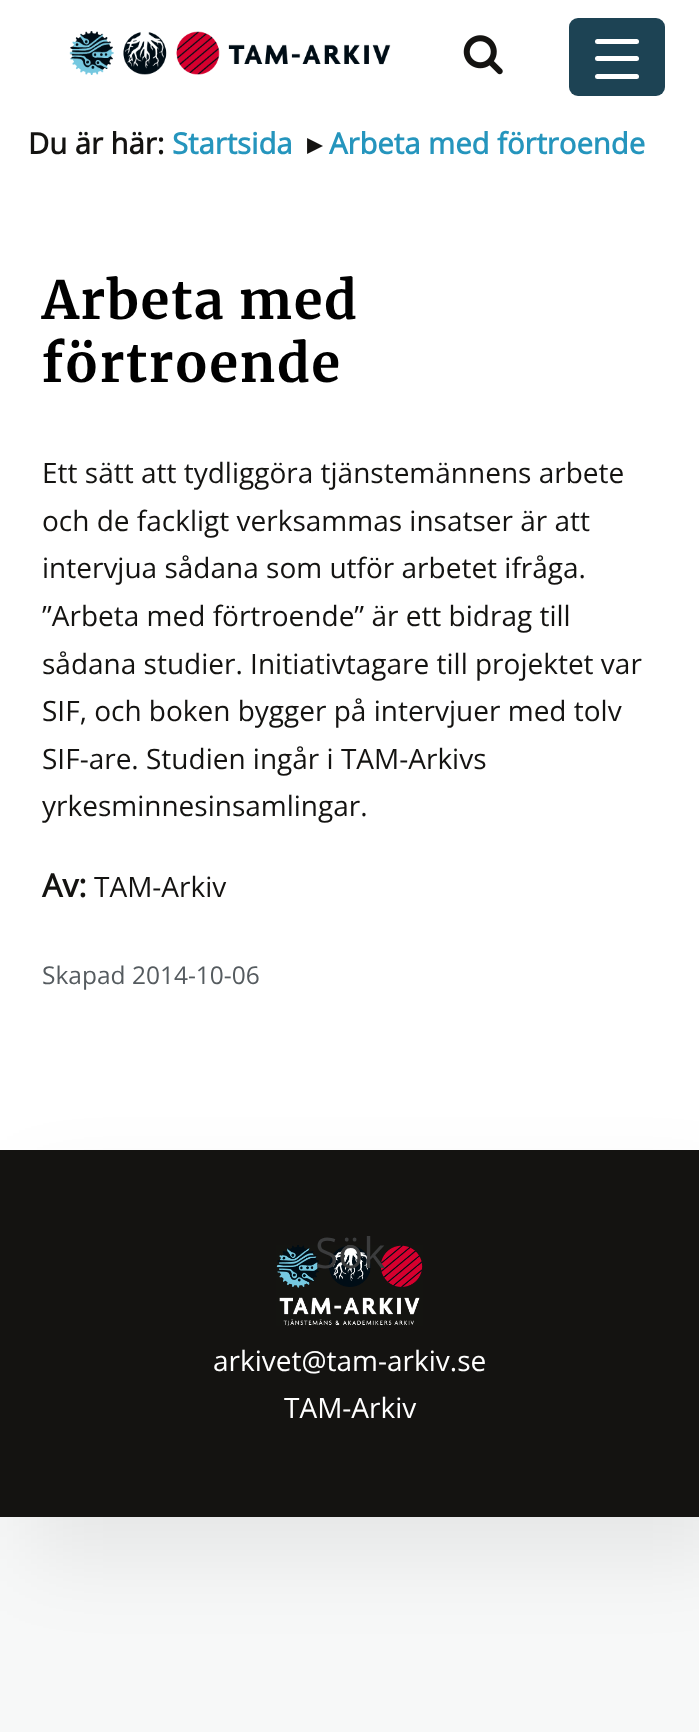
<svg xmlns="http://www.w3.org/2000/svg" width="699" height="1732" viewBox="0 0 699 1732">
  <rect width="100%" height="100%" fill="rgb(247,248,248)"/>
  <rect x="0" y="0" width="699" height="1150" fill="rgb(255,255,255)"/>
  <rect x="569" y="18" width="96" height="78" rx="9" fill="rgb(29,67,84)"/>
  <rect x="595" y="56" width="44" height="5" rx="2.5" fill="rgb(255,255,255)"/>
  <rect x="595" y="39" width="44" height="5" rx="2.5" fill="rgb(255,255,255)"/>
  <rect x="595" y="74" width="44" height="5" rx="2.5" fill="rgb(255,255,255)"/>
  <text x="28" y="154" font-family="Open Sans" font-size="29.25" font-weight="bold" fill="rgb(20,19,17)">Du är här:</text>
  <text x="172" y="154" font-family="Open Sans" font-size="29.25" font-weight="bold" fill="rgb(37,149,189)">Startsida</text>
  <text x="307" y="154" font-family="DejaVu Sans" font-size="29.25" font-weight="bold" fill="rgb(20,19,17)">▸</text>
  <text x="329" y="154" font-family="Open Sans" font-size="29.25" font-weight="bold" fill="rgb(37,149,189)">Arbeta med förtroende</text>
  <g font-family="Merriweather" font-size="52.5" font-weight="bold" letter-spacing="1.5" fill="rgb(0,0,0)">
    <text>
      <tspan x="42" y="319">Arbeta med</tspan>
      <tspan x="42" y="382">förtroende</tspan>
    </text>
  </g>
  <g font-family="Open Sans" font-size="28" fill="rgb(20,19,17)">
    <text>
      <tspan x="42" y="483">Ett sätt att tydliggöra tjänstemännens arbete</tspan>
      <tspan x="42" y="531">och de fackligt verksammas insatser är att</tspan>
      <tspan x="42" y="578">intervjua sådana som utför arbetet ifråga.</tspan>
      <tspan x="42" y="626">”Arbeta med förtroende” är ett bidrag till</tspan>
      <tspan x="42" y="674">sådana studier. Initiativtagare till projektet var</tspan>
      <tspan x="42" y="721">SIF, och boken bygger på intervjuer med tolv</tspan>
      <tspan x="42" y="769">SIF-are. Studien ingår i TAM-Arkivs</tspan>
      <tspan x="42" y="816">yrkesminnesinsamlingar.</tspan>
    </text>
  </g>
  <text x="42" y="897" font-family="Open Sans" font-size="32" font-weight="bold" fill="rgb(20,19,17)">Av:</text>
  <text x="94" y="897" font-family="Open Sans" font-size="28" fill="rgb(20,19,17)">TAM-Arkiv</text>
  <text x="42" y="984" font-family="Open Sans" font-size="24.5" fill="rgb(85,91,95)">Skapad 2014-10-06</text>
  <image x="69" y="31" width="322" height="44" href="pic1.png"/>
  <image x="463" y="35" width="40" height="40" href="pic2.png"/>
  <rect x="28" y="1192" width="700" height="367" fill="rgba(0,0,0,0.07)" filter="blur(42px)"/>
  <rect x="0" y="1150" width="699" height="367" fill="rgb(20,19,17)"/>
  <image x="276" y="1245" width="147" height="81" href="pic3.png"/>
  <text x="315" y="1268" font-family="Open Sans" font-size="42" fill="rgb(59,60,61)">Sök</text>
  <g font-family="Open Sans" font-size="28" fill="rgb(255,255,255)">
    <text x="213" y="1371">arkivet@tam-arkiv.se</text>
    <text x="284" y="1418">TAM-Arkiv</text>
  </g>
</svg>
